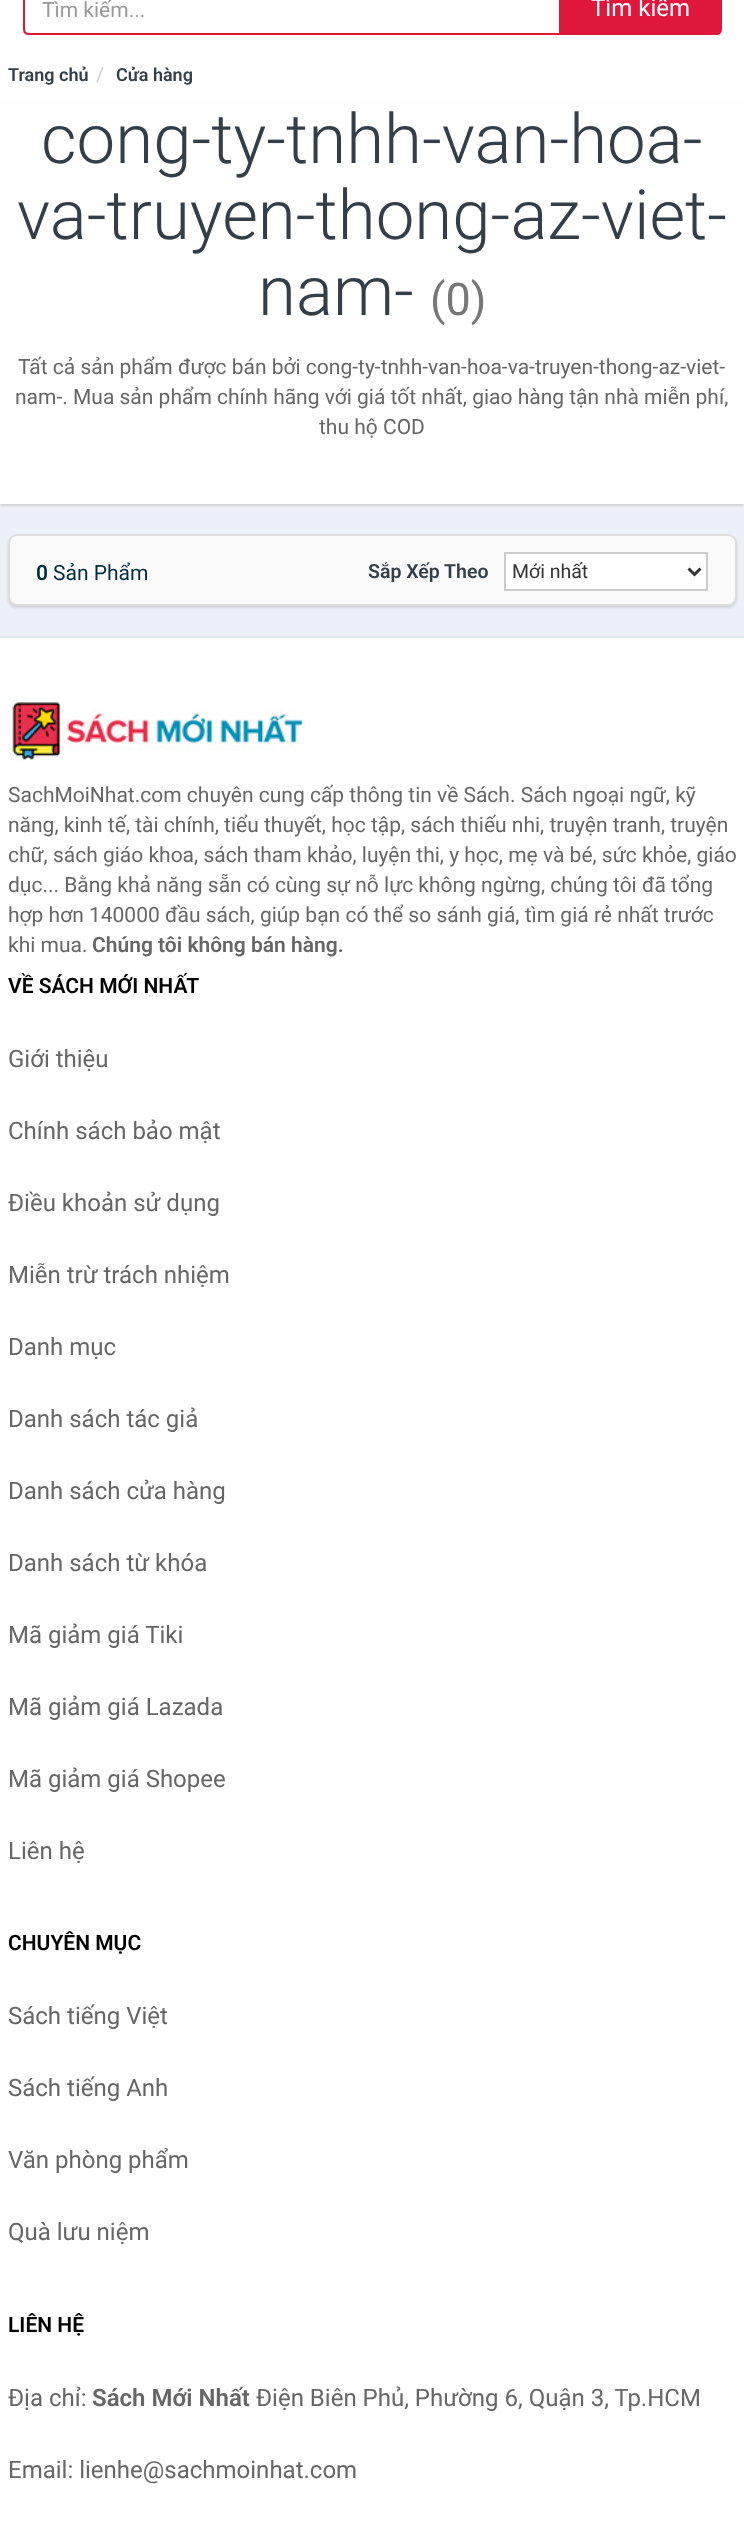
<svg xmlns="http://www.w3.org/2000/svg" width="744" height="2548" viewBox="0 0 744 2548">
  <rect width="100%" height="100%" fill="rgb(255,255,255)"/>
  <path d="M29-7H560V34H29C26 34 24 32 24 29V-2C24-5 26-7 29-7Z" fill="none" stroke="rgb(223,23,61)" stroke-width="2"/>
  <text x="42" y="17" font-family="Roboto" font-size="21" fill="rgb(153,153,153)">Tìm kiếm...</text>
  <path d="M561-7H716C719-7 721-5 721-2V29C721 32 719 34 716 34H561Z" fill="rgb(223,23,61)" stroke="rgb(223,23,61)" stroke-width="2"/>
  <text x="591" y="16" font-family="Roboto" font-size="24" fill="rgb(255,255,255)">Tìm kiếm</text>
  <text x="8" y="81" font-family="Roboto" font-size="18" font-weight="600" fill="rgb(51,62,72)">Trang chủ</text>
  <text x="96" y="81" font-family="Roboto" font-size="19.5" fill="rgb(204,204,204)">/</text>
  <text x="116" y="81" font-family="Roboto" font-size="18" font-weight="600" fill="rgb(51,62,72)">Cửa hàng</text>
  <rect x="0" y="504" width="744" height="132" fill="rgb(236,241,247)"/>
  <rect x="0" y="104" width="744" height="402" fill="rgba(180,180,180,0.5)" filter="blur(1px)"/>
  <rect x="0" y="103" width="744" height="401" fill="rgb(255,255,255)"/>
  <g font-family="Roboto" font-size="69" font-weight="300" fill="rgb(51,62,72)">
    <text x="41" y="163">cong-ty-tnhh-van-hoa-</text>
    <text x="17" y="239">va-truyen-thong-az-viet-</text>
    <text x="258" y="315">nam-</text>
  </g>
  <text x="430" y="315" font-family="Roboto" font-size="45" fill="rgb(119,119,119)">(0)</text>
  <g font-family="Roboto" font-size="21" fill="rgb(102,102,102)">
    <text x="18" y="374">Tất cả sản phẩm được bán bởi cong-ty-tnhh-van-hoa-va-truyen-thong-az-viet-</text>
    <text x="15" y="404">nam-. Mua sản phẩm chính hãng với giá tốt nhất, giao hàng tận nhà miễn phí,</text>
    <text x="319" y="434">thu hộ COD</text>
  </g>
  <rect x="8" y="536" width="729" height="72" rx="9" fill="rgba(180,180,180,0.5)" filter="blur(1px)"/>
  <rect x="9" y="535" width="727" height="70" rx="8" fill="rgb(250,250,250)" stroke="rgb(221,221,221)" stroke-width="2"/>
  <text x="36" y="580" font-family="Roboto" font-size="21" font-weight="600" fill="rgb(1,45,65)">0</text>
  <text x="53" y="580" font-family="Roboto" font-size="21" fill="rgb(1,45,65)">Sản Phẩm</text>
  <text x="368" y="578" font-family="Roboto" font-size="19.5" font-weight="600" fill="rgb(51,62,72)">Sắp Xếp Theo</text>
  <rect x="505" y="553" width="202" height="37" fill="rgb(255,255,255)" stroke="rgb(204,204,204)" stroke-width="2"/>
  <path d="M688.5 568.5L694.5 574.5L700.5 568.5" fill="none" stroke="rgb(51,51,51)" stroke-width="3"/>
  <text x="512" y="578" font-family="Roboto" font-size="19.5" fill="rgb(51,51,51)">Mới nhất</text>
  <rect x="0" y="636" width="744" height="2" fill="rgb(223,231,239)"/>
  <image x="7" y="697" width="299" height="65" href="pic1.png"/>
  <g font-family="Roboto" font-size="21" fill="rgb(102,102,102)">
    <text>
      <tspan x="8" y="802">SachMoiNhat.com chuyên cung cấp thông tin về Sách. Sách ngoại ngữ, kỹ</tspan>
      <tspan x="8" y="832">năng, kinh tế, tài chính, tiểu thuyết, học tập, sách thiếu nhi, truyện tranh, truyện</tspan>
      <tspan x="8" y="862">chữ, sách giáo khoa, sách tham khảo, luyện thi, y học, mẹ và bé, sức khỏe, giáo</tspan>
      <tspan x="8" y="892">dục... Bằng khả năng sẵn có cùng sự nỗ lực không ngừng, chúng tôi đã tổng</tspan>
      <tspan x="8" y="922">hợp hơn 140000 đầu sách, giúp bạn có thể so sánh giá, tìm giá rẻ nhất trước</tspan>
      <tspan x="8" y="952">khi mua.</tspan>
    </text>
  </g>
  <text x="92" y="952" font-family="Roboto" font-size="21" font-weight="600" fill="rgb(102,102,102)">Chúng tôi không bán hàng.</text>
  <text x="8" y="993" font-family="Roboto" font-size="21" font-weight="600" fill="rgb(0,0,0)">VỀ SÁCH MỚI NHẤT</text>
  <g font-family="Roboto" font-size="24" fill="rgb(102,102,102)">
    <text x="8" y="1067">Giới thiệu</text>
    <text x="8" y="1139">Chính sách bảo mật</text>
    <text x="8" y="1211">Điều khoản sử dụng</text>
    <text x="8" y="1283">Miễn trừ trách nhiệm</text>
    <text x="8" y="1355">Danh mục</text>
    <text x="8" y="1427">Danh sách tác giả</text>
    <text x="8" y="1499">Danh sách cửa hàng</text>
    <text x="8" y="1571">Danh sách từ khóa</text>
    <text x="8" y="1643">Mã giảm giá Tiki</text>
    <text x="8" y="1715">Mã giảm giá Lazada</text>
    <text x="8" y="1787">Mã giảm giá Shopee</text>
    <text x="8" y="1859">Liên hệ</text>
  </g>
  <text x="8" y="1950" font-family="Roboto" font-size="21" font-weight="600" fill="rgb(0,0,0)">CHUYÊN MỤC</text>
  <g font-family="Roboto" font-size="24" fill="rgb(102,102,102)">
    <text x="8" y="2024">Sách tiếng Việt</text>
    <text x="8" y="2096">Sách tiếng Anh</text>
    <text x="8" y="2168">Văn phòng phẩm</text>
    <text x="8" y="2240">Quà lưu niệm</text>
  </g>
  <text x="8" y="2332" font-family="Roboto" font-size="21" font-weight="600" fill="rgb(0,0,0)">LIÊN HỆ</text>
  <text x="8" y="2406" font-family="Roboto" font-size="24" fill="rgb(102,102,102)">Địa chỉ:</text>
  <text x="92" y="2406" font-family="Roboto" font-size="24" font-weight="600" fill="rgb(102,102,102)">Sách Mới Nhất</text>
  <g font-family="Roboto" font-size="24" fill="rgb(102,102,102)">
    <text x="256" y="2406">Điện Biên Phủ, Phường 6, Quận 3, Tp.HCM</text>
    <text x="8" y="2478">Email: lienhe@sachmoinhat.com</text>
  </g>
</svg>
